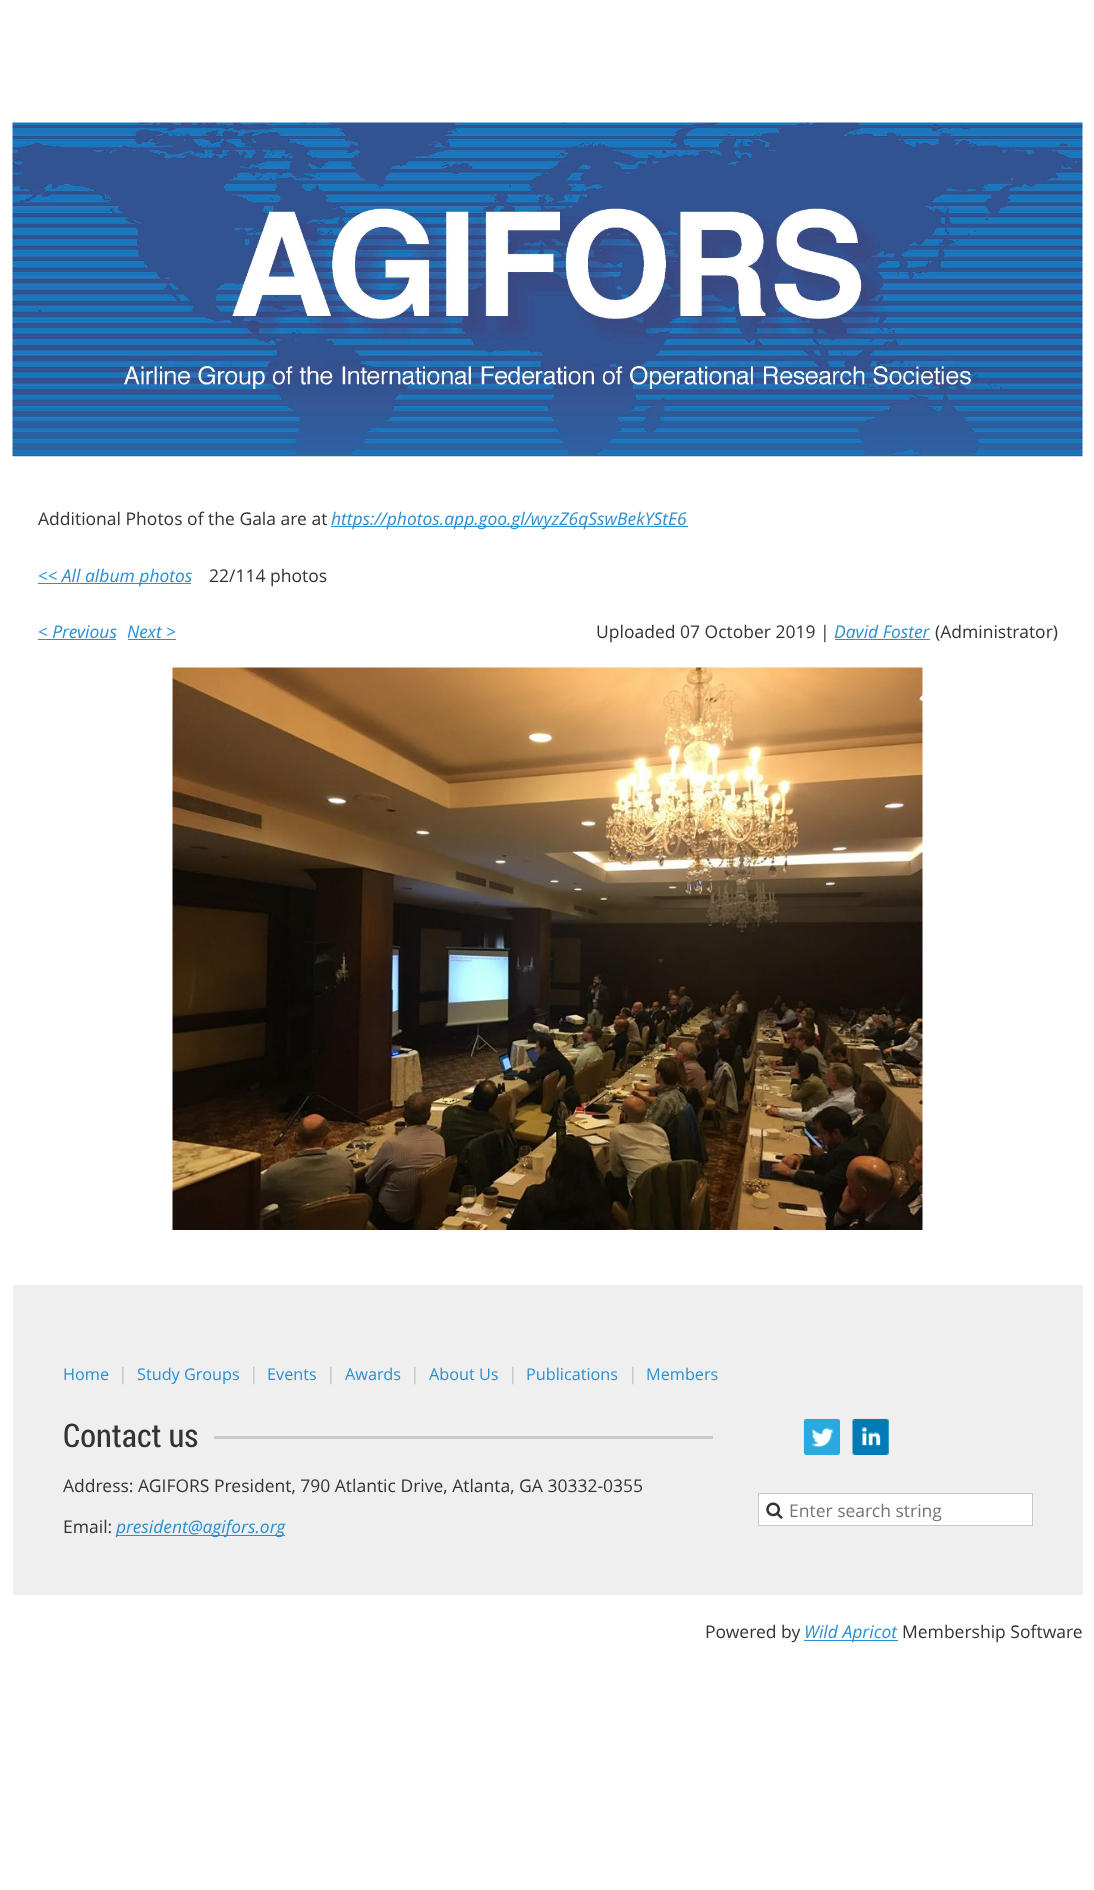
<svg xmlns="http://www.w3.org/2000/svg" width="1094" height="1890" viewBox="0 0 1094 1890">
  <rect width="100%" height="100%" fill="rgb(255,255,255)"/>
  <image x="12" y="122" width="1071" height="335" href="pic1.png"/>
  <text x="38" y="525" font-family="Open Sans" font-size="17.5" fill="rgb(51,51,51)">Additional Photos of the Gala are at</text>
  <rect x="331" y="526" width="357" height="1" fill="rgb(43,144,209)"/>
  <text x="331" y="525" font-family="Open Sans" font-size="17.5" font-style="italic" fill="rgb(43,144,209)">https://photos.app.goo.gl/wyzZ6qSswBekYStE6</text>
  <rect x="38" y="583" width="153" height="1" fill="rgb(43,144,209)"/>
  <text x="38" y="582" font-family="Open Sans" font-size="17.5" font-style="italic" fill="rgb(43,144,209)">&lt;&lt; All album photos</text>
  <text x="209" y="582" font-family="Open Sans" font-size="17.5" fill="rgb(51,51,51)">22/114 photos</text>
  <text x="38" y="638" font-family="Open Sans" font-size="17.5" font-style="italic" fill="rgb(43,144,209)">&lt; Previous</text>
  <rect x="38" y="639" width="78" height="1" fill="rgb(43,144,209)"/>
  <text x="127" y="638" font-family="Open Sans" font-size="17.5" font-style="italic" fill="rgb(43,144,209)">Next &gt;</text>
  <rect x="128" y="639" width="48" height="1" fill="rgb(43,144,209)"/>
  <text x="596" y="638" font-family="Open Sans" font-size="17.5" fill="rgb(51,51,51)">Uploaded 07 October 2019 |</text>
  <text x="834" y="638" font-family="Open Sans" font-size="17.5" font-style="italic" fill="rgb(43,144,209)">David Foster</text>
  <rect x="835" y="639" width="95" height="1" fill="rgb(43,144,209)"/>
  <text x="935" y="638" font-family="Open Sans" font-size="17.5" fill="rgb(51,51,51)">(Administrator)</text>
  <image x="172" y="667" width="751" height="563" href="pic2.png"/>
  <rect x="13" y="1285" width="1070" height="310" fill="rgb(239,239,239)"/>
  <text x="63" y="1380" font-family="Open Sans" font-size="16.25" fill="rgb(43,144,209)">Home</text>
  <text x="118" y="1380" font-family="Open Sans" font-size="17.5" fill="rgb(194,194,194)">|</text>
  <text x="137" y="1380" font-family="Open Sans" font-size="16.25" fill="rgb(43,144,209)">Study Groups</text>
  <text x="249" y="1380" font-family="Open Sans" font-size="17.5" fill="rgb(194,194,194)">|</text>
  <text x="267" y="1380" font-family="Open Sans" font-size="16.25" fill="rgb(43,144,209)">Events</text>
  <text x="326" y="1380" font-family="Open Sans" font-size="17.5" fill="rgb(194,194,194)">|</text>
  <text x="345" y="1380" font-family="Open Sans" font-size="16.25" fill="rgb(43,144,209)">Awards</text>
  <text x="410" y="1380" font-family="Open Sans" font-size="17.5" fill="rgb(194,194,194)">|</text>
  <text x="429" y="1380" font-family="Open Sans" font-size="16.25" fill="rgb(43,144,209)">About Us</text>
  <text x="508" y="1380" font-family="Open Sans" font-size="17.5" fill="rgb(194,194,194)">|</text>
  <text x="526" y="1380" font-family="Open Sans" font-size="16.25" fill="rgb(43,144,209)">Publications</text>
  <text x="628" y="1380" font-family="Open Sans" font-size="17.5" fill="rgb(194,194,194)">|</text>
  <text x="646" y="1380" font-family="Open Sans" font-size="16.25" fill="rgb(43,144,209)">Members</text>
  <text x="63" y="1447" font-family="Roboto Condensed" font-size="32.5" fill="rgb(51,51,51)">Contact us</text>
  <rect x="214" y="1436" width="499" height="3" fill="rgb(202,202,202)"/>
  <g font-family="Open Sans" font-size="17.5" fill="rgb(51,51,51)">
    <text x="63" y="1492">Address: AGIFORS President, 790 Atlantic Drive, Atlanta, GA 30332-0355</text>
    <text x="63" y="1533">Email:</text>
  </g>
  <rect x="116" y="1535" width="169" height="1" fill="rgb(43,144,209)"/>
  <text x="116" y="1533" font-family="Open Sans" font-size="17.5" font-style="italic" fill="rgb(43,144,209)">president@agifors.org</text>
  <image x="803" y="1418" width="37" height="37" href="pic3.png"/>
  <image x="852" y="1418" width="37" height="37" href="pic4.png"/>
  <rect x="758.5" y="1493.5" width="274" height="32" fill="rgb(255,255,255)" stroke="rgb(198,198,198)"/>
  <image x="766" y="1502" width="17" height="17" href="pic5.png"/>
  <text x="789" y="1517" font-family="Open Sans" font-size="17.5" fill="rgb(117,117,117)">Enter search string</text>
  <text x="705" y="1638" font-family="Open Sans" font-size="17.5" fill="rgb(51,51,51)">Powered by</text>
  <rect x="804" y="1640" width="94" height="1" fill="rgb(43,144,209)"/>
  <text x="804" y="1638" font-family="Open Sans" font-size="17.5" font-style="italic" fill="rgb(43,144,209)">Wild Apricot</text>
  <text x="902" y="1638" font-family="Open Sans" font-size="17.5" fill="rgb(51,51,51)">Membership Software</text>
</svg>
